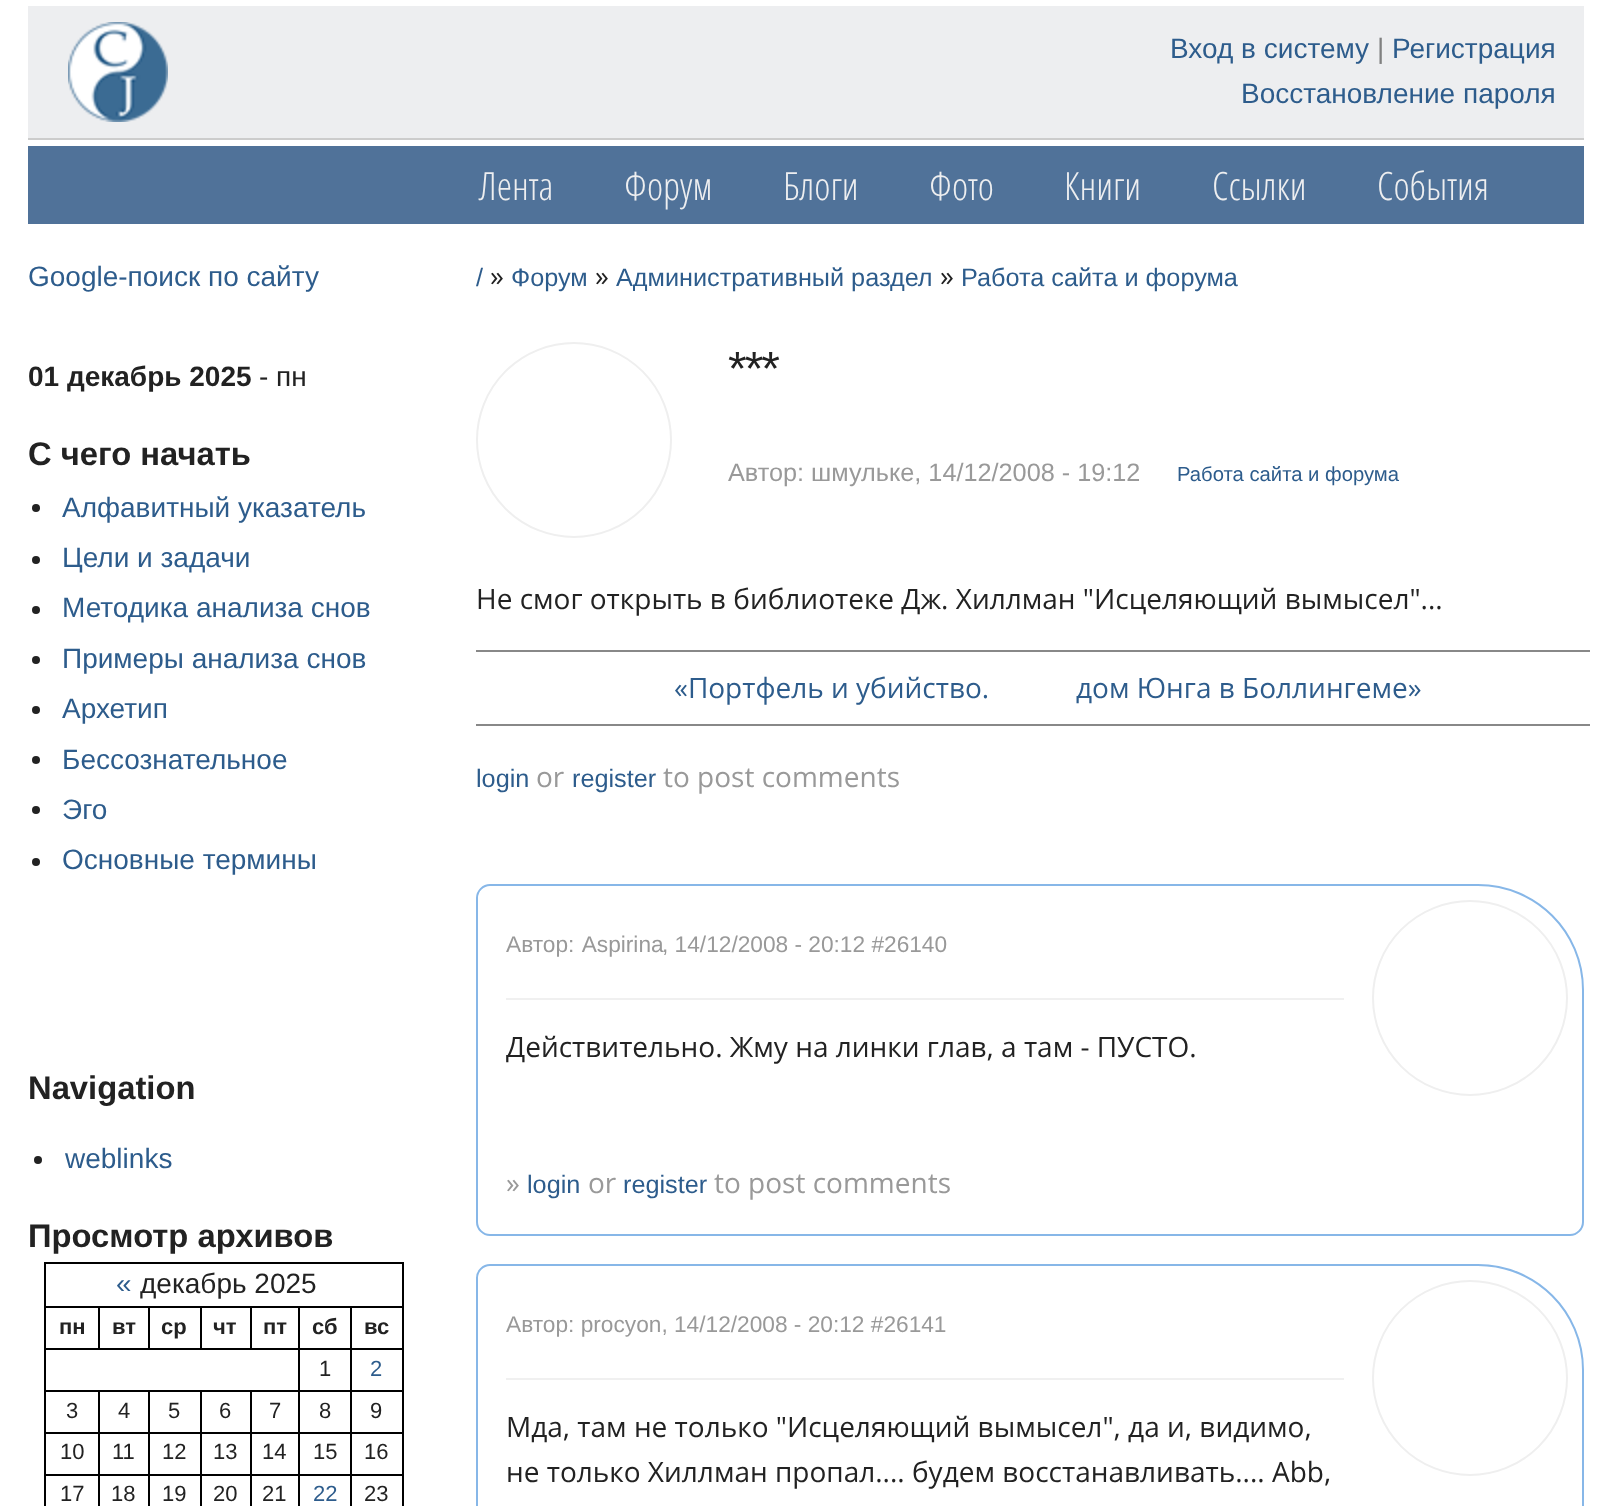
<svg xmlns="http://www.w3.org/2000/svg" width="1611" height="1506" viewBox="0 0 1611 1506">
  <rect width="100%" height="100%" fill="rgb(255,255,255)"/>
  <rect x="28" y="6" width="1556" height="132" fill="rgb(237,238,240)"/>
  <rect x="28" y="138" width="1556" height="2" fill="rgb(204,204,204)"/>
  <image x="68" y="22" width="100" height="100" href="pic1.png"/>
  <text x="1170" y="58" font-family="Liberation Sans" font-size="28" fill="rgb(45,92,140)">Вход в систему</text>
  <text x="1377" y="58" font-family="Liberation Sans" font-size="28" fill="rgb(128,128,128)">|</text>
  <g font-family="Liberation Sans" font-size="28" fill="rgb(45,92,140)">
    <text x="1392" y="58">Регистрация</text>
    <text x="1241" y="103">Восстановление пароля</text>
  </g>
  <rect x="28" y="146" width="1556" height="78" fill="rgb(80,114,153)"/>
  <g font-family="Open Sans Condensed" font-size="39" font-weight="300" fill="rgb(237,238,240)">
    <text x="479" y="200">Лента</text>
    <text x="624" y="200">Форум</text>
    <text x="783" y="200">Блоги</text>
    <text x="929" y="200">Фото</text>
    <text x="1064" y="200">Книги</text>
    <text x="1212" y="200">Ссылки</text>
    <text x="1377" y="200">События</text>
  </g>
  <text x="28" y="286" font-family="Liberation Sans" font-size="28" fill="rgb(45,92,140)">Google-поиск по сайту</text>
  <text x="28" y="386" font-family="Liberation Sans" font-size="28" font-weight="bold" fill="rgb(34,34,34)">01 декабрь 2025</text>
  <text x="259" y="386" font-family="Liberation Sans" font-size="28" fill="rgb(34,34,34)">- пн</text>
  <text x="28" y="465" font-family="Liberation Sans" font-size="32.75" font-weight="bold" fill="rgb(34,34,34)">С чего начать</text>
  <circle cx="36" cy="508" r="4" fill="rgb(34,34,34)"/>
  <text x="62" y="517" font-family="Liberation Sans" font-size="28" fill="rgb(45,92,140)">Алфавитный указатель</text>
  <circle cx="36" cy="560" r="4" fill="rgb(34,34,34)"/>
  <text x="62" y="567" font-family="Liberation Sans" font-size="28" fill="rgb(45,92,140)">Цели и задачи</text>
  <circle cx="36" cy="610" r="4" fill="rgb(34,34,34)"/>
  <text x="62" y="617" font-family="Liberation Sans" font-size="28" fill="rgb(45,92,140)">Методика анализа снов</text>
  <circle cx="36" cy="660" r="4" fill="rgb(34,34,34)"/>
  <text x="62" y="668" font-family="Liberation Sans" font-size="28" fill="rgb(45,92,140)">Примеры анализа снов</text>
  <circle cx="36" cy="710" r="4" fill="rgb(34,34,34)"/>
  <text x="62" y="718" font-family="Liberation Sans" font-size="28" fill="rgb(45,92,140)">Архетип</text>
  <circle cx="36" cy="760" r="4" fill="rgb(34,34,34)"/>
  <text x="62" y="769" font-family="Liberation Sans" font-size="28" fill="rgb(45,92,140)">Бессознательное</text>
  <circle cx="36" cy="810" r="4" fill="rgb(34,34,34)"/>
  <text x="62" y="819" font-family="Liberation Sans" font-size="28" fill="rgb(45,92,140)">Эго</text>
  <circle cx="36" cy="862" r="4" fill="rgb(34,34,34)"/>
  <text x="62" y="869" font-family="Liberation Sans" font-size="28" fill="rgb(45,92,140)">Основные термины</text>
  <text x="28" y="1099" font-family="Liberation Sans" font-size="32.75" font-weight="bold" fill="rgb(34,34,34)">Navigation</text>
  <circle cx="38" cy="1160" r="4" fill="rgb(34,34,34)"/>
  <text x="65" y="1168" font-family="Liberation Sans" font-size="28" fill="rgb(45,92,140)">weblinks</text>
  <text x="28" y="1247" font-family="Liberation Sans" font-size="32.75" font-weight="bold" fill="rgb(34,34,34)">Просмотр архивов</text>
  <rect x="44" y="1262" width="360" height="2" fill="rgb(0,0,0)"/>
  <rect x="402" y="1262" width="2" height="244" fill="rgb(0,0,0)"/>
  <rect x="44" y="1262" width="2" height="244" fill="rgb(0,0,0)"/>
  <text x="116" y="1293" font-family="Liberation Sans" font-size="28" fill="rgb(45,92,140)">«</text>
  <text x="140" y="1293" font-family="Liberation Sans" font-size="28" fill="rgb(34,34,34)">декабрь 2025</text>
  <rect x="350" y="1306" width="54" height="2" fill="rgb(0,0,0)"/>
  <rect x="350" y="1348" width="54" height="2" fill="rgb(0,0,0)"/>
  <rect x="350" y="1390" width="54" height="2" fill="rgb(0,0,0)"/>
  <rect x="350" y="1432" width="54" height="2" fill="rgb(0,0,0)"/>
  <rect x="350" y="1474" width="54" height="2" fill="rgb(0,0,0)"/>
  <rect x="350" y="1474" width="2" height="32" fill="rgb(0,0,0)"/>
  <rect x="298" y="1474" width="54" height="2" fill="rgb(0,0,0)"/>
  <rect x="350" y="1432" width="2" height="44" fill="rgb(0,0,0)"/>
  <rect x="298" y="1432" width="54" height="2" fill="rgb(0,0,0)"/>
  <rect x="350" y="1390" width="2" height="44" fill="rgb(0,0,0)"/>
  <rect x="298" y="1390" width="54" height="2" fill="rgb(0,0,0)"/>
  <rect x="350" y="1348" width="2" height="44" fill="rgb(0,0,0)"/>
  <rect x="298" y="1348" width="54" height="2" fill="rgb(0,0,0)"/>
  <rect x="350" y="1306" width="2" height="44" fill="rgb(0,0,0)"/>
  <rect x="298" y="1306" width="54" height="2" fill="rgb(0,0,0)"/>
  <rect x="298" y="1474" width="2" height="32" fill="rgb(0,0,0)"/>
  <rect x="250" y="1474" width="50" height="2" fill="rgb(0,0,0)"/>
  <rect x="298" y="1432" width="2" height="44" fill="rgb(0,0,0)"/>
  <rect x="250" y="1432" width="50" height="2" fill="rgb(0,0,0)"/>
  <rect x="298" y="1390" width="2" height="44" fill="rgb(0,0,0)"/>
  <rect x="250" y="1390" width="50" height="2" fill="rgb(0,0,0)"/>
  <rect x="298" y="1348" width="2" height="44" fill="rgb(0,0,0)"/>
  <rect x="298" y="1306" width="2" height="44" fill="rgb(0,0,0)"/>
  <rect x="250" y="1306" width="50" height="2" fill="rgb(0,0,0)"/>
  <rect x="250" y="1348" width="50" height="2" fill="rgb(0,0,0)"/>
  <rect x="250" y="1306" width="2" height="44" fill="rgb(0,0,0)"/>
  <rect x="200" y="1306" width="52" height="2" fill="rgb(0,0,0)"/>
  <rect x="200" y="1348" width="52" height="2" fill="rgb(0,0,0)"/>
  <rect x="200" y="1306" width="2" height="44" fill="rgb(0,0,0)"/>
  <rect x="148" y="1306" width="54" height="2" fill="rgb(0,0,0)"/>
  <rect x="148" y="1348" width="54" height="2" fill="rgb(0,0,0)"/>
  <rect x="148" y="1306" width="2" height="44" fill="rgb(0,0,0)"/>
  <rect x="98" y="1306" width="52" height="2" fill="rgb(0,0,0)"/>
  <rect x="98" y="1348" width="52" height="2" fill="rgb(0,0,0)"/>
  <rect x="98" y="1306" width="2" height="44" fill="rgb(0,0,0)"/>
  <rect x="44" y="1306" width="56" height="2" fill="rgb(0,0,0)"/>
  <rect x="44" y="1348" width="56" height="2" fill="rgb(0,0,0)"/>
  <g font-family="Liberation Sans" font-size="22" font-weight="bold" fill="rgb(34,34,34)">
    <text x="59" y="1334">пн</text>
    <text x="112" y="1334">вт</text>
    <text x="161" y="1334">ср</text>
    <text x="213" y="1334">чт</text>
    <text x="263" y="1334">пт</text>
    <text x="312" y="1334">сб</text>
    <text x="364" y="1334">вс</text>
  </g>
  <text x="319" y="1376" font-family="Liberation Sans" font-size="22" fill="rgb(34,34,34)">1</text>
  <text x="370" y="1376" font-family="Liberation Sans" font-size="22" fill="rgb(45,92,140)">2</text>
  <rect x="250" y="1474" width="2" height="32" fill="rgb(0,0,0)"/>
  <rect x="200" y="1474" width="52" height="2" fill="rgb(0,0,0)"/>
  <rect x="250" y="1432" width="2" height="44" fill="rgb(0,0,0)"/>
  <rect x="200" y="1432" width="52" height="2" fill="rgb(0,0,0)"/>
  <rect x="250" y="1390" width="2" height="44" fill="rgb(0,0,0)"/>
  <rect x="200" y="1390" width="52" height="2" fill="rgb(0,0,0)"/>
  <rect x="200" y="1474" width="2" height="32" fill="rgb(0,0,0)"/>
  <rect x="148" y="1474" width="54" height="2" fill="rgb(0,0,0)"/>
  <rect x="200" y="1432" width="2" height="44" fill="rgb(0,0,0)"/>
  <rect x="148" y="1432" width="54" height="2" fill="rgb(0,0,0)"/>
  <rect x="200" y="1390" width="2" height="44" fill="rgb(0,0,0)"/>
  <rect x="148" y="1390" width="54" height="2" fill="rgb(0,0,0)"/>
  <rect x="148" y="1474" width="2" height="32" fill="rgb(0,0,0)"/>
  <rect x="98" y="1474" width="52" height="2" fill="rgb(0,0,0)"/>
  <rect x="148" y="1432" width="2" height="44" fill="rgb(0,0,0)"/>
  <rect x="98" y="1432" width="52" height="2" fill="rgb(0,0,0)"/>
  <rect x="148" y="1390" width="2" height="44" fill="rgb(0,0,0)"/>
  <rect x="98" y="1390" width="52" height="2" fill="rgb(0,0,0)"/>
  <rect x="98" y="1474" width="2" height="32" fill="rgb(0,0,0)"/>
  <rect x="44" y="1474" width="56" height="2" fill="rgb(0,0,0)"/>
  <rect x="98" y="1432" width="2" height="44" fill="rgb(0,0,0)"/>
  <rect x="44" y="1432" width="56" height="2" fill="rgb(0,0,0)"/>
  <rect x="98" y="1390" width="2" height="44" fill="rgb(0,0,0)"/>
  <rect x="44" y="1390" width="56" height="2" fill="rgb(0,0,0)"/>
  <g font-family="Liberation Sans" font-size="22" fill="rgb(34,34,34)">
    <text x="66" y="1418">3</text>
    <text x="118" y="1418">4</text>
    <text x="168" y="1418">5</text>
    <text x="219" y="1418">6</text>
    <text x="269" y="1418">7</text>
    <text x="319" y="1418">8</text>
    <text x="370" y="1418">9</text>
    <text x="60" y="1459">10</text>
    <text x="112" y="1459">11</text>
    <text x="162" y="1459">12</text>
    <text x="213" y="1459">13</text>
    <text x="262" y="1459">14</text>
    <text x="313" y="1459">15</text>
    <text x="364" y="1459">16</text>
    <text x="60" y="1501">17</text>
    <text x="111" y="1501">18</text>
    <text x="162" y="1501">19</text>
    <text x="213" y="1501">20</text>
    <text x="262" y="1501">21</text>
  </g>
  <text x="313" y="1501" font-family="Liberation Sans" font-size="22" fill="rgb(45,92,140)">22</text>
  <text x="364" y="1501" font-family="Liberation Sans" font-size="22" fill="rgb(34,34,34)">23</text>
  <text x="476" y="286" font-family="Liberation Sans" font-size="25.25" fill="rgb(45,92,140)">/</text>
  <text x="490" y="286" font-family="Open Sans" font-size="28" fill="rgb(34,34,34)">»</text>
  <text x="511" y="286" font-family="Liberation Sans" font-size="25.25" fill="rgb(45,92,140)">Форум</text>
  <text x="595" y="286" font-family="Open Sans" font-size="28" fill="rgb(34,34,34)">»</text>
  <text x="616" y="286" font-family="Liberation Sans" font-size="25.25" fill="rgb(45,92,140)">Административный раздел</text>
  <text x="940" y="286" font-family="Open Sans" font-size="28" fill="rgb(34,34,34)">»</text>
  <text x="961" y="286" font-family="Liberation Sans" font-size="25.25" fill="rgb(45,92,140)">Работа сайта и форума</text>
  <circle cx="574" cy="440" r="97" fill="none" stroke="rgb(239,239,239)" stroke-width="2"/>
  <text x="728" y="385" font-family="Liberation Sans" font-size="48" letter-spacing="-2" fill="rgb(34,34,34)">***</text>
  <text x="728" y="481" font-family="Liberation Sans" font-size="25.25" fill="rgb(153,153,153)">Автор: шмульке, 14/12/2008 - 19:12</text>
  <text x="1177" y="481" font-family="Liberation Sans" font-size="20.25" fill="rgb(45,92,140)">Работа сайта и форума</text>
  <text x="476" y="609" font-family="Open Sans" font-size="28" fill="rgb(34,34,34)">Не смог открыть в библиотеке Дж. Хиллман "Исцеляющий вымысел"...</text>
  <rect x="476" y="650" width="1114" height="2" fill="rgb(136,136,136)"/>
  <rect x="476" y="724" width="1114" height="2" fill="rgb(136,136,136)"/>
  <g font-family="Open Sans" font-size="28" fill="rgb(45,92,140)">
    <text x="674" y="698">«Портфель и убийство.</text>
    <text x="1076" y="698">дом Юнга в Боллингеме»</text>
  </g>
  <text x="476" y="787" font-family="Liberation Sans" font-size="25.25" fill="rgb(45,92,140)">login</text>
  <text x="536" y="787" font-family="Open Sans" font-size="28" fill="rgb(153,153,153)">or</text>
  <text x="572" y="787" font-family="Liberation Sans" font-size="25.25" fill="rgb(45,92,140)">register</text>
  <text x="663" y="787" font-family="Open Sans" font-size="28" fill="rgb(153,153,153)">to post comments</text>
  <path d="M490 885H1478C1536 885 1583 932 1583 990V1222C1583 1229 1577 1235 1570 1235H490C483 1235 477 1229 477 1222V898C477 891 483 885 490 885Z" fill="none" stroke="rgb(135,183,232)" stroke-width="2"/>
  <rect x="506" y="998" width="838" height="2" fill="rgb(240,240,240)"/>
  <g font-family="Liberation Sans" font-size="22.7" fill="rgb(153,153,153)">
    <text x="506" y="952" word-spacing="1">Автор: Aspirina</text>
    <text x="662" y="952">, 14/12/2008 - 20:12 #26140</text>
  </g>
  <text x="506" y="1057" font-family="Open Sans" font-size="28" fill="rgb(34,34,34)">Действительно. Жму на линки глав, а там - ПУСТО.</text>
  <circle cx="1470" cy="998" r="97" fill="none" stroke="rgb(239,239,239)" stroke-width="2"/>
  <text x="506" y="1193" font-family="Open Sans" font-size="28" fill="rgb(153,153,153)">»</text>
  <text x="527" y="1193" font-family="Liberation Sans" font-size="25.25" fill="rgb(45,92,140)">login</text>
  <text x="588" y="1193" font-family="Open Sans" font-size="28" fill="rgb(153,153,153)">or</text>
  <text x="623" y="1193" font-family="Liberation Sans" font-size="25.25" fill="rgb(45,92,140)">register</text>
  <text x="714" y="1193" font-family="Open Sans" font-size="28" fill="rgb(153,153,153)">to post comments</text>
  <path d="M490 1265H1478C1536 1265 1583 1312 1583 1370V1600C1583 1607 1577 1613 1570 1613H490C483 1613 477 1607 477 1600V1278C477 1271 483 1265 490 1265Z" fill="none" stroke="rgb(135,183,232)" stroke-width="2"/>
  <rect x="506" y="1378" width="838" height="2" fill="rgb(240,240,240)"/>
  <text x="506" y="1332" font-family="Liberation Sans" font-size="22.7" fill="rgb(153,153,153)">Автор: procyon, 14/12/2008 - 20:12 #26141</text>
  <g font-family="Open Sans" font-size="28" fill="rgb(34,34,34)">
    <text>
      <tspan x="506" y="1437">Мда, там не только "Исцеляющий вымысел", да и, видимо,</tspan>
      <tspan x="506" y="1482">не только Хиллман пропал.... будем восстанавливать.... Abb,</tspan>
    </text>
  </g>
  <circle cx="1470" cy="1378" r="97" fill="none" stroke="rgb(239,239,239)" stroke-width="2"/>
</svg>
